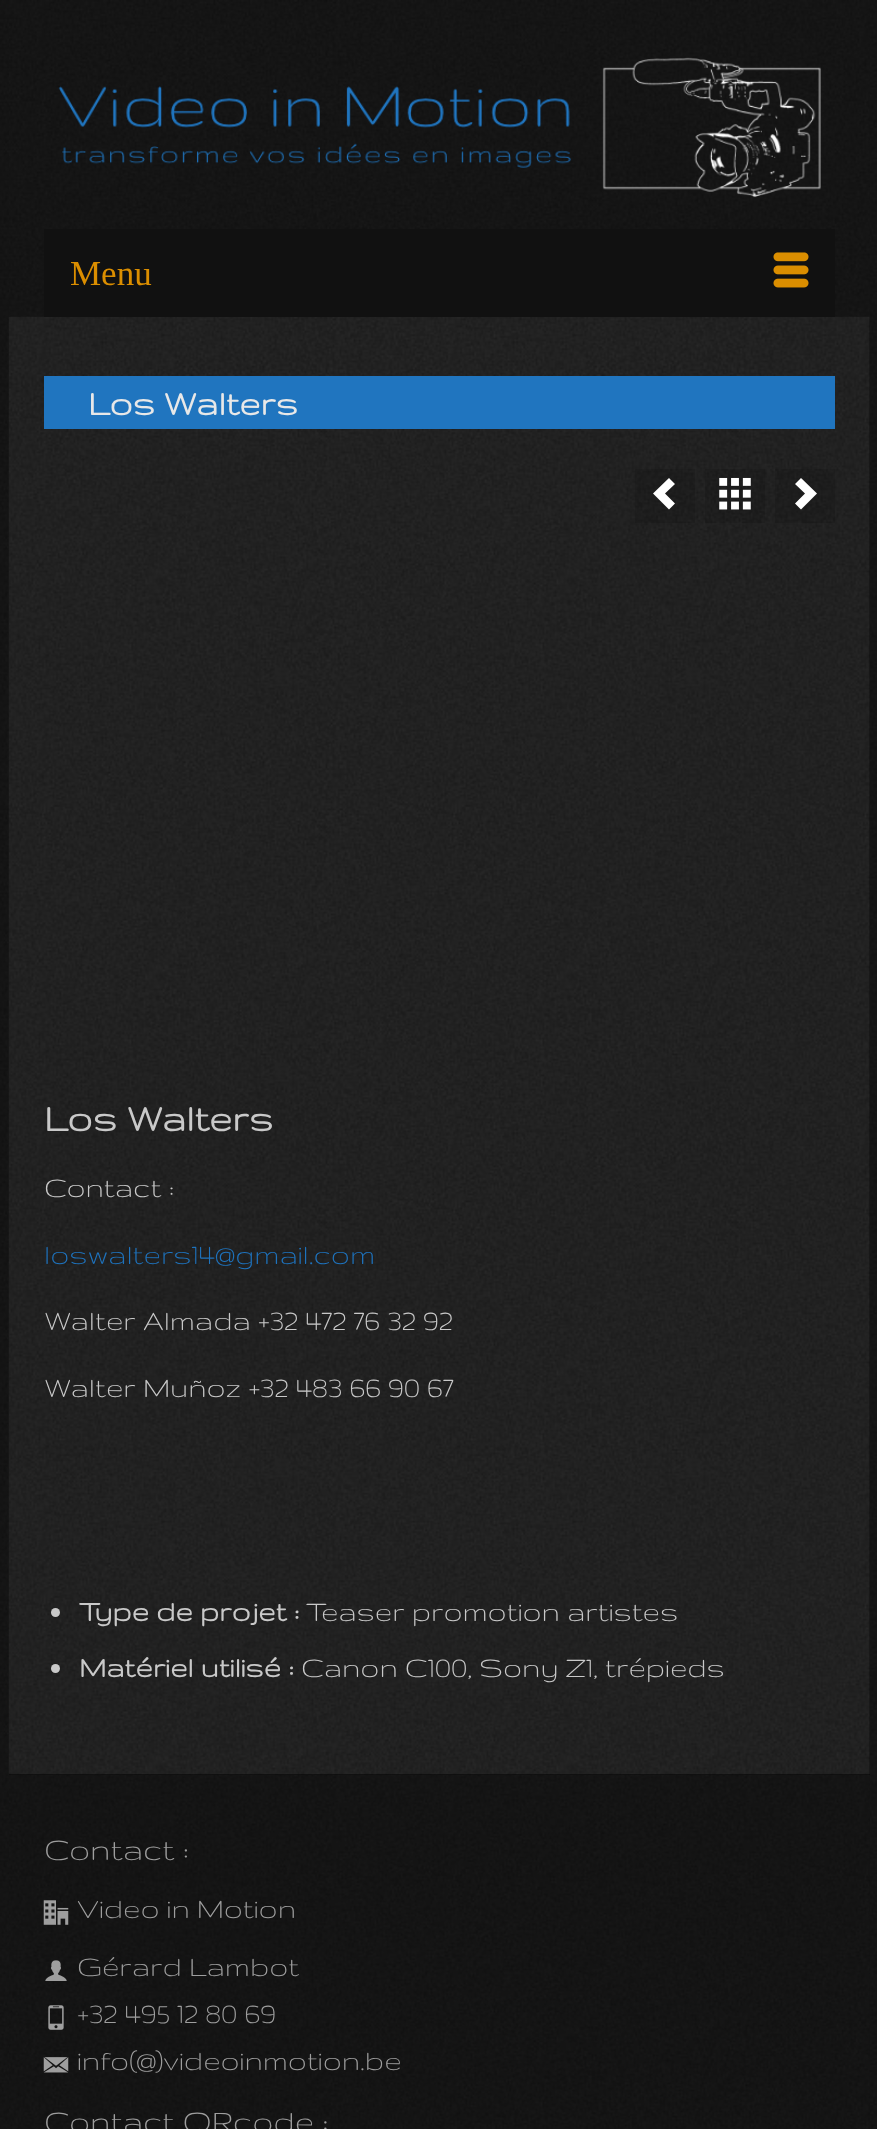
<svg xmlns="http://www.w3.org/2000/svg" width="877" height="2129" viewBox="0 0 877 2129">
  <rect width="100%" height="100%" fill="rgb(255,255,255)"/>
  <image x="0" y="0" width="877" height="2129" href="pic1.png"/>
  <image x="9" y="0" width="861" height="316" href="pic2.png"/>
  <image x="58" y="57" width="763" height="141" href="pic3.png"/>
  <rect x="9" y="317" width="861" height="1458" fill="rgb(0,0,0)"/>
  <image x="8" y="316" width="862" height="1459" href="pic5.png"/>
  <rect x="44" y="229" width="791" height="88" fill="rgb(17,17,17)"/>
  <text x="70" y="285" font-family="Liberation Serif" font-size="35" fill="rgb(219,142,0)">Menu</text>
  <image x="773" y="252" width="36" height="36" href="pic4.png"/>
  <rect x="44" y="376" width="791" height="53" fill="rgb(32,117,191)"/>
  <text x="88" y="415" font-family="Gruppo" font-size="38.5" font-weight="bold" fill="rgb(232,232,232)">Los Walters</text>
  <rect x="635" y="469" width="60" height="54" fill="rgba(0,0,0,0.1)"/>
  <rect x="705" y="469" width="60" height="54" fill="rgba(0,0,0,0.1)"/>
  <rect x="775" y="469" width="60" height="54" fill="rgba(0,0,0,0.1)"/>
  <path d="M669 509.5L675 503.5L665 493.5L675 484L669 478L653 493.5Z" fill="rgb(255,255,255)"/>
  <image x="719" y="477" width="32" height="33" href="pic6.png"/>
  <path d="M801 478L795 484L805 493.5L795 503.5L801 509.5L817 493.5Z" fill="rgb(255,255,255)"/>
  <text x="44" y="1131" font-family="Gruppo" font-size="42" font-weight="bold" fill="rgb(201,201,201)">Los Walters</text>
  <text x="44" y="1197" font-family="Gruppo" font-size="31.5" fill="rgb(201,201,201)">Contact :</text>
  <text x="44" y="1264" font-family="Gruppo" font-size="31.5" fill="rgb(30,115,190)">loswalters14@gmail.com</text>
  <g font-family="Gruppo" font-size="31.5" fill="rgb(201,201,201)">
    <text x="44" y="1330">Walter Almada +32 472 76 32 92</text>
    <text x="44" y="1397">Walter Muñoz +32 483 66 90 67</text>
  </g>
  <circle cx="55.5" cy="1612.5" r="4.5" fill="rgb(201,201,201)"/>
  <text x="79" y="1621" font-family="Gruppo" font-size="31.5" font-weight="bold" fill="rgb(201,201,201)">Type de projet :</text>
  <text x="306" y="1621" font-family="Gruppo" font-size="31.5" fill="rgb(201,201,201)">Teaser promotion artistes</text>
  <circle cx="55.5" cy="1668.5" r="4.5" fill="rgb(201,201,201)"/>
  <text x="79" y="1677" font-family="Gruppo" font-size="31.5" font-weight="bold" fill="rgb(201,201,201)">Matériel utilisé :</text>
  <text x="301" y="1677" font-family="Gruppo" font-size="31.5" fill="rgb(201,201,201)">Canon C100, Sony Z1, trépieds</text>
  <image x="9" y="1775" width="861" height="354" href="pic7.png"/>
  <text x="44" y="1860" font-family="Gruppo" font-size="35" fill="rgb(158,158,158)">Contact :</text>
  <image x="43" y="1900" width="26" height="25" href="pic8.png"/>
  <text x="77" y="1918" font-family="Gruppo" font-size="31.5" fill="rgb(158,158,158)">Video in Motion</text>
  <image x="45" y="1960" width="22" height="21" href="pic9.png"/>
  <text x="77" y="1976" font-family="Gruppo" font-size="31.5" fill="rgb(158,158,158)">Gérard Lambot</text>
  <image x="48" y="2005" width="16" height="25" href="pic10.png"/>
  <text x="77" y="2023" font-family="Gruppo" font-size="31.5" fill="rgb(158,158,158)">+32 495 12 80 69</text>
  <image x="43" y="2057" width="26" height="16" href="pic11.png"/>
  <text x="77" y="2070" font-family="Gruppo" font-size="31.5" fill="rgb(158,158,158)">info(@)videoinmotion.be</text>
  <text x="44" y="2132" font-family="Gruppo" font-size="35" fill="rgb(158,158,158)">Contact QRcode :</text>
</svg>
